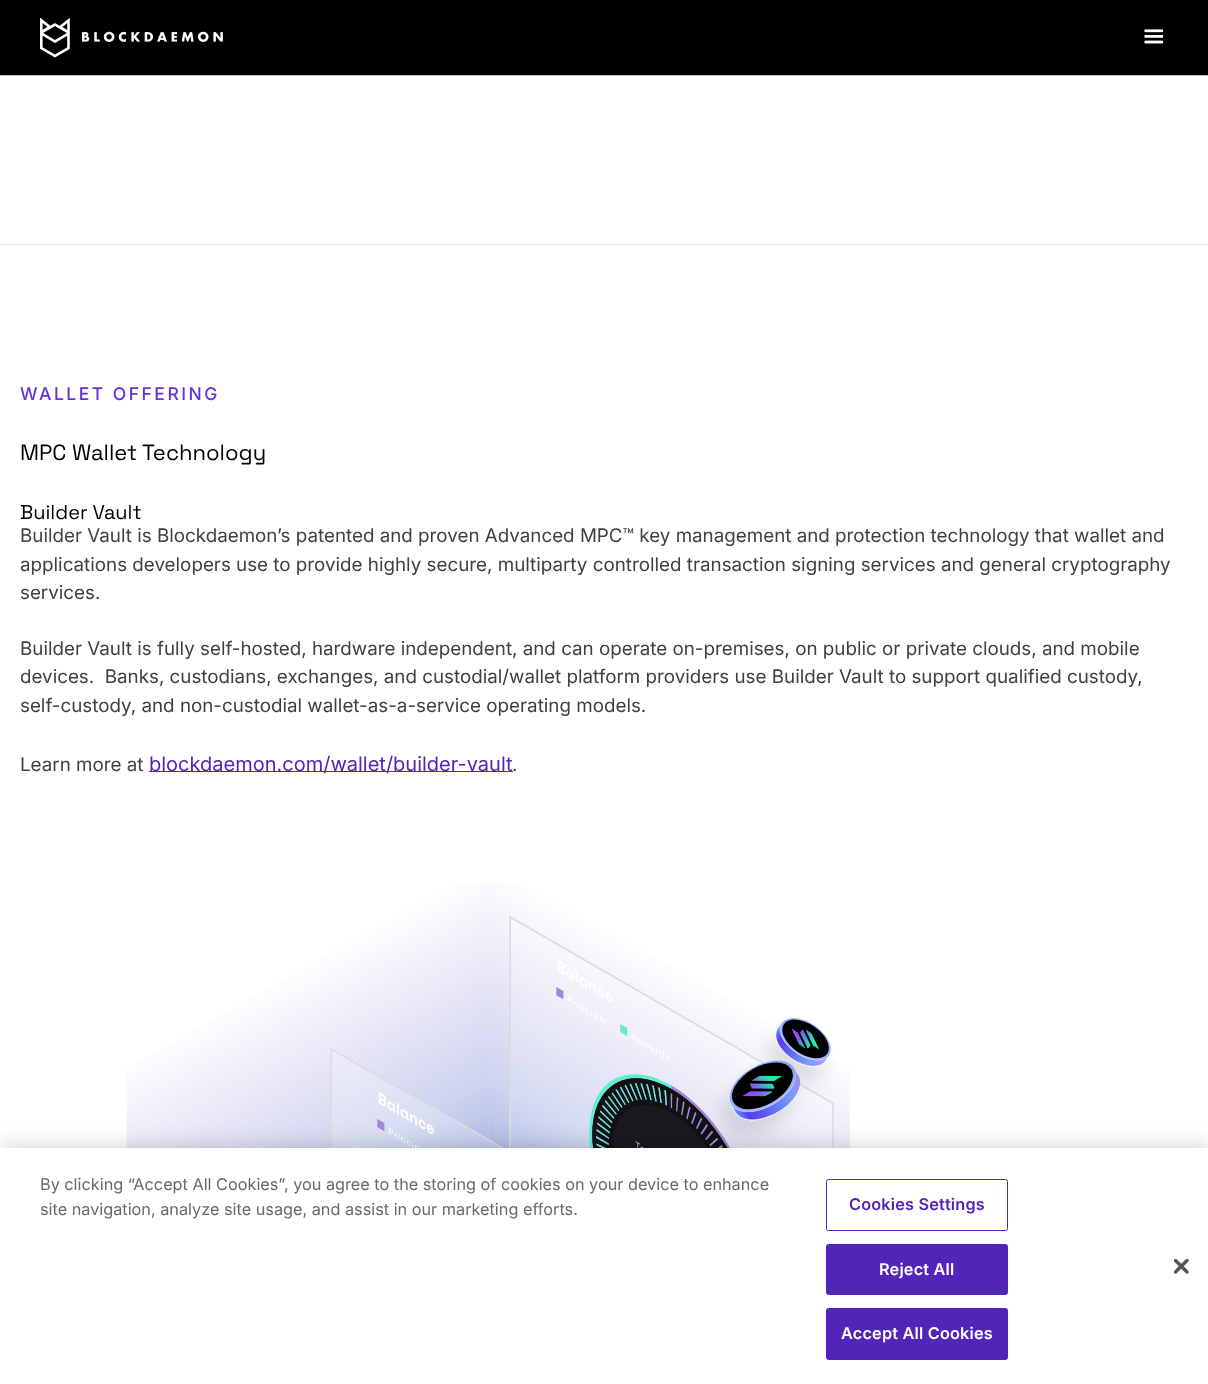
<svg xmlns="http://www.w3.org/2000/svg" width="1208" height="1384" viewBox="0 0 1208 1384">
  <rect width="100%" height="100%" fill="rgb(255,255,255)"/>
  <rect x="0" y="0" width="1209" height="76" rx="0.5" fill="rgb(0,0,0)"/>
  <rect x="0" y="75" width="1208" height="1" fill="rgba(255,255,255,0.75)"/>
  <image x="40" y="18" width="183" height="40" href="pic1.png"/>
  <image x="1144" y="29" width="20" height="15" href="pic2.png"/>
  <rect x="0" y="244" width="1208" height="1" fill="rgb(230,230,230)"/>
  <text x="20" y="400" font-family="Inter" font-size="17.5" font-weight="500" letter-spacing="2.5" fill="rgb(100,52,216)">WALLET OFFERING</text>
  <text x="20" y="460" font-family="Space Grotesk" font-size="22" fill="rgb(0,0,0)">MPC Wallet Technology</text>
  <text x="20" y="519" font-family="Space Grotesk" font-size="20" fill="rgb(0,0,0)">Builder Vault</text>
  <g font-family="Inter" font-size="18.8" fill="rgb(64,64,64)">
    <text>
      <tspan x="20" y="542">Builder Vault is Blockdaemon’s patented and proven Advanced MPC™ key management and protection technology that wallet and</tspan>
      <tspan x="20" y="571">applications developers use to provide highly secure, multiparty controlled transaction signing services and general cryptography</tspan>
      <tspan x="20" y="599">services.</tspan>
    </text>
    <text xml:space="preserve"><tspan x="20" y="655">Builder Vault is fully self-hosted, hardware independent, and can operate on-premises, on public or private clouds, and mobile</tspan><tspan x="20" y="683">devices.  Banks, custodians, exchanges, and custodial/wallet platform providers use Builder Vault to support qualified custody,</tspan><tspan x="20" y="712">self-custody, and non-custodial wallet-as-a-service operating models.</tspan></text>
    <text x="20" y="771">Learn more at</text>
  </g>
  <rect x="149" y="771" width="364" height="1" fill="rgb(80,37,184)"/>
  <text x="149" y="771" font-family="Inter" font-size="20" fill="rgb(80,37,184)">blockdaemon.com/wallet/builder-vault</text>
  <text x="512" y="771" font-family="Inter" font-size="18.8" fill="rgb(64,64,64)">.</text>
  <image x="126" y="882" width="724" height="266" href="pic3.png"/>
  <rect x="0" y="1148" width="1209" height="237" fill="rgba(0,0,0,0.2)" filter="blur(11px)"/>
  <rect x="0" y="1148" width="1208" height="236" fill="rgb(255,255,255)"/>
  <g font-family="Inter" font-size="16.25" fill="rgb(105,105,105)">
    <text>
      <tspan x="40" y="1190">By clicking “Accept All Cookies”, you agree to the storing of cookies on your device to enhance</tspan>
      <tspan x="40" y="1215">site navigation, analyze site usage, and assist in our marketing efforts.</tspan>
    </text>
  </g>
  <rect x="826.5" y="1179.5" width="181" height="51" rx="2" fill="none" stroke="rgb(80,37,184)"/>
  <text x="849" y="1210" font-family="Inter" font-size="16.25" font-weight="600" letter-spacing="0.2" fill="rgb(80,37,184)">Cookies Settings</text>
  <rect x="826.5" y="1244.5" width="181" height="50" rx="2" fill="rgb(80,37,184)" stroke="rgb(80,37,184)"/>
  <text x="879" y="1275" font-family="Inter" font-size="16.25" font-weight="600" letter-spacing="0.2" fill="rgb(255,255,255)">Reject All</text>
  <rect x="826.5" y="1308.5" width="181" height="51" rx="2" fill="rgb(80,37,184)" stroke="rgb(80,37,184)"/>
  <text x="841" y="1339" font-family="Inter" font-size="16.25" font-weight="600" letter-spacing="0.2" fill="rgb(255,255,255)">Accept All Cookies</text>
  <image x="1174" y="1259" width="15" height="15" href="pic4.png"/>
</svg>
